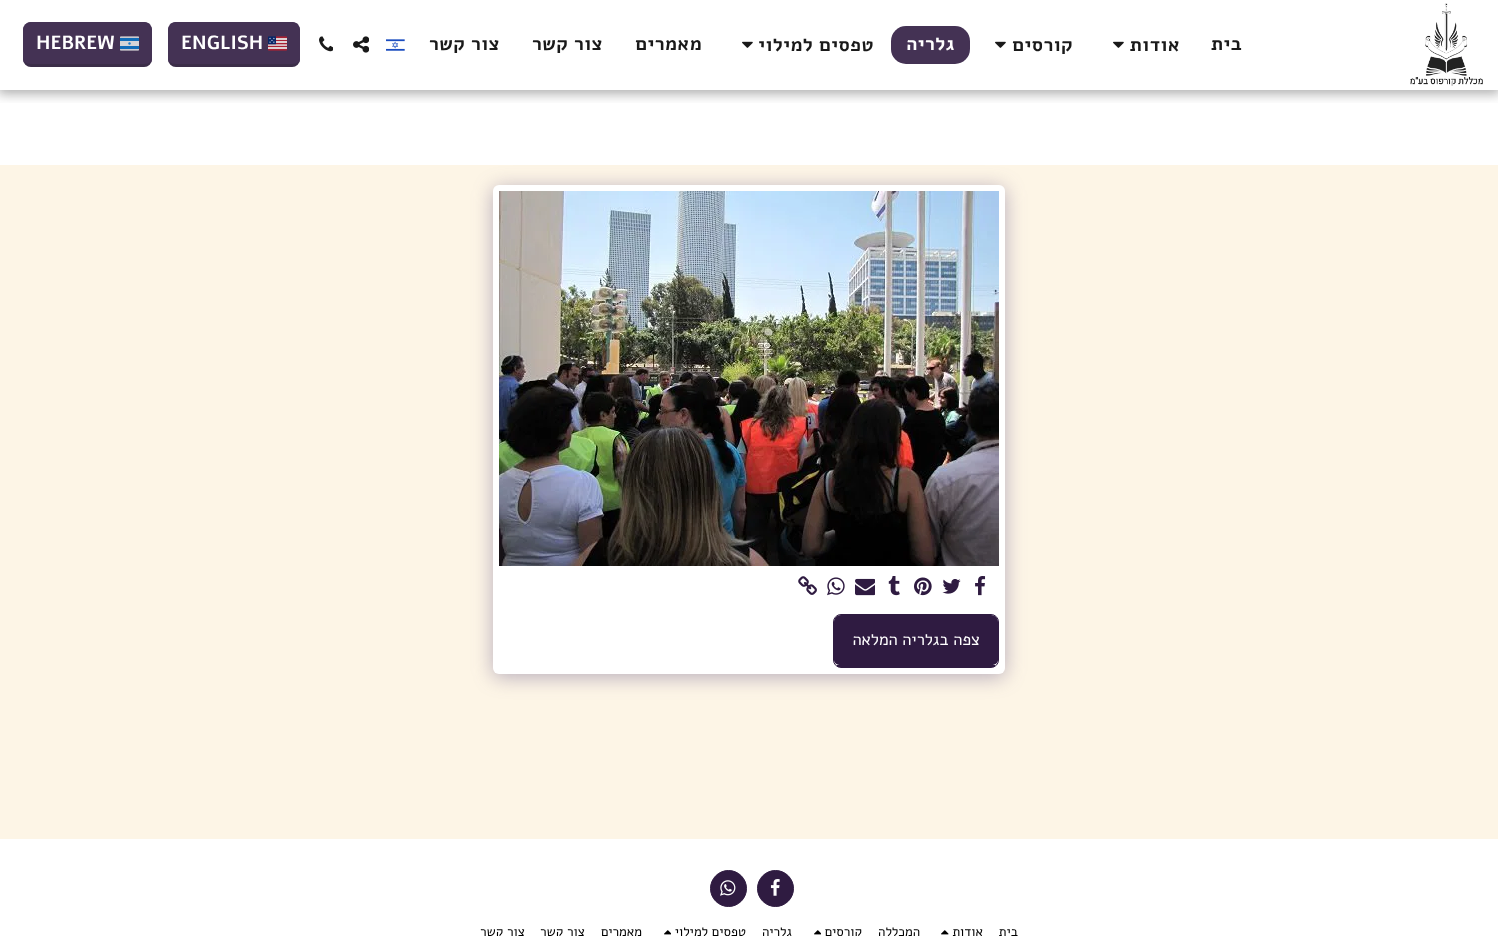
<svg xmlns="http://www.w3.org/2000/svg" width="1498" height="936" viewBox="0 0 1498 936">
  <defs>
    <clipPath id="clip1"><rect x="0" y="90" width="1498" height="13"/></clipPath>
  </defs>
  <rect width="100%" height="100%" fill="rgb(253,245,230)"/>
  <rect x="0" y="0" width="1498" height="165" fill="rgb(255,255,255)"/>
  <g clip-path="url(#clip1)">
    <rect x="-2" y="0" width="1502" height="94" fill="rgba(26,26,26,0.35)" filter="blur(6px)"/>
  </g>
  <image x="1410" y="3" width="73" height="83" href="pic1.png"/>
  <g font-family="Alef" font-size="19" font-weight="bold" letter-spacing="0.5" direction="rtl" fill="rgb(26,26,26)">
    <text x="1242" y="50">בית</text>
    <text x="1180" y="51">אודות</text>
  </g>
  <image x="1113" y="41" width="11" height="7" href="pic2.png"/>
  <text x="1073" y="51" font-family="Alef" font-size="19" font-weight="bold" letter-spacing="0.5" direction="rtl" fill="rgb(26,26,26)">קורסים</text>
  <image x="995" y="41" width="11" height="7" href="pic2.png"/>
  <rect x="891" y="26" width="79" height="38" rx="15" fill="rgb(68,50,84)"/>
  <text x="955" y="50" font-family="Alef" font-size="19" font-weight="bold" letter-spacing="0.5" direction="rtl" fill="rgb(255,255,255)">גלריה</text>
  <text x="874" y="51" font-family="Alef" font-size="19" font-weight="bold" letter-spacing="0.5" direction="rtl" fill="rgb(26,26,26)">טפסים למילוי</text>
  <image x="742" y="41" width="11" height="7" href="pic2.png"/>
  <g font-family="Alef" font-size="19" font-weight="bold" letter-spacing="0.5" direction="rtl" fill="rgb(26,26,26)">
    <text x="702" y="50">מאמרים</text>
    <text x="603" y="50">צור קשר</text>
    <text x="500" y="50">צור קשר</text>
  </g>
  <image x="386" y="39" width="19" height="12" href="pic3.png"/>
  <image x="353" y="36" width="16" height="17" href="pic4.png"/>
  <image x="319" y="36" width="14" height="16" href="pic5.png"/>
  <rect x="168" y="22" width="132" height="45" rx="8" fill="rgb(68,50,84)"/>
  <path d="M176 22C174 22 172 23 170 24L171 25C172 24 174 23 176 23H292C294 23 296 24 297 25L298 24C296 23 294 22 292 22Z" fill="rgb(68,50,84)"/>
  <path d="M300 59V30C300 28 299 26 297.5 24.5L297 25C298 26 299 28 299 30V59C299 60 298.5 61 298 61.5L298.5 63C299.5 62 300 60.5 300 59Z" fill="rgb(68,50,84)"/>
  <path d="M176 67H292C295 67 297 65 299 63L298 62C297 63 295 64 292 64H176C173 64 171 63 170 62L169 63C171 65 173 67 176 67Z" fill="rgba(26,26,26,0.2)"/>
  <path d="M168 30V59C168 60.5 168.5 62 169.5 63L170 61.5C169.5 61 169 60 169 59V30C169 28 170 26 171 25L170.5 24.5C169 26 168 28 168 30Z" fill="rgb(68,50,84)"/>
  <image x="268" y="36" width="19" height="15" href="pic6.png"/>
  <text x="181" y="49" font-family="Alef" font-size="19" font-weight="bold" fill="rgb(255,255,255)">ENGLISH</text>
  <rect x="23" y="22" width="129" height="45" rx="8" fill="rgb(68,50,84)"/>
  <path d="M31 22C29 22 27 23 26 24V25C27 24 29 23 31 23H144C146 23 148 24 149 25L150 24C148 23 146 22 144 22Z" fill="rgb(68,50,84)"/>
  <path d="M152 59V30C152 28 151 26 149.5 24.5L149 25C150 26 151 28 151 30V59C151 60 150.5 61 150 61.5L150.5 63C151.5 62 152 60.5 152 59Z" fill="rgb(68,50,84)"/>
  <path d="M31 67H144C147 67 149 65 151 63L150 62C149 63 147 64 144 64H31C28 64 26 63 25 62L24 63C26 65 28 67 31 67Z" fill="rgba(26,26,26,0.2)"/>
  <path d="M23 30V59C23 60.5 23.5 62 24.5 63L25 61.5C24.5 61 24 60 24 59V30C24 28 25 26 26 25L25.5 24.5C24 26 23 28 23 30Z" fill="rgb(68,50,84)"/>
  <image x="120" y="36" width="19" height="15" href="pic7.png"/>
  <text x="36" y="49" font-family="Alef" font-size="19" font-weight="bold" fill="rgb(255,255,255)">HEBREW</text>
  <rect x="493" y="188" width="512" height="489" rx="6" fill="rgba(77,63,122,0.4)" filter="blur(10px)"/>
  <rect x="493" y="185" width="512" height="489" rx="6" fill="rgb(255,255,255)"/>
  <image x="499" y="191" width="500" height="375" href="pic8.png"/>
  <image x="975" y="576" width="11" height="20" href="pic9.png"/>
  <image x="942" y="579" width="19" height="15" href="pic10.png"/>
  <image x="914" y="577" width="18" height="19" href="pic11.png"/>
  <image x="888" y="576" width="12" height="20" href="pic12.png"/>
  <image x="855" y="578" width="20" height="18" href="pic13.png"/>
  <image x="827" y="577" width="18" height="19" href="pic14.png"/>
  <image x="798" y="576" width="19" height="19" href="pic15.png"/>
  <path d="M841 615H991C995 615 998 618 998 622V660C998 663 995 665 991 665H841C837 665 834 663 834 660V622C834 618 837 615 841 615Z" fill="rgb(47,27,65)"/>
  <rect x="833.5" y="614.5" width="165" height="53" rx="7.5" fill="none" stroke="rgb(47,27,65)"/>
  <rect x="837" y="665" width="158" height="2" fill="rgb(47,27,65)"/>
  <text x="980" y="645" font-family="Alef" font-size="16.5" direction="rtl" fill="rgb(255,255,255)">צפה בגלריה המלאה</text>
  <rect x="0" y="839" width="1498" height="97" fill="rgb(255,255,255)"/>
  <circle cx="775.5" cy="888.5" r="18" fill="rgb(47,27,65)" stroke="rgb(47,27,65)"/>
  <image x="770" y="879" width="10" height="17" href="pic16.png"/>
  <circle cx="728.5" cy="888.5" r="18" fill="rgb(47,27,65)" stroke="rgb(47,27,65)"/>
  <image x="720" y="880" width="16" height="16" href="pic17.png"/>
  <g font-family="Alef" font-size="13.25" direction="rtl" fill="rgb(0,0,0)">
    <text x="1018" y="936">בית</text>
    <text x="983" y="936">אודות</text>
  </g>
  <image x="941" y="930" width="8" height="5" href="pic18.png"/>
  <g font-family="Alef" font-size="13.25" direction="rtl" fill="rgb(0,0,0)">
    <text x="920" y="936">המכללה</text>
    <text x="862" y="936">קורסים</text>
  </g>
  <image x="814" y="930" width="7" height="5" href="pic19.png"/>
  <g font-family="Alef" font-size="13.25" direction="rtl" fill="rgb(0,0,0)">
    <text x="792" y="936">גלריה</text>
    <text x="746" y="936">טפסים למילוי</text>
  </g>
  <image x="664" y="930" width="7" height="5" href="pic19.png"/>
  <g font-family="Alef" font-size="13.25" direction="rtl" fill="rgb(0,0,0)">
    <text x="642" y="936">מאמרים</text>
    <text x="585" y="936">צור קשר</text>
    <text x="525" y="936">צור קשר</text>
  </g>
</svg>
